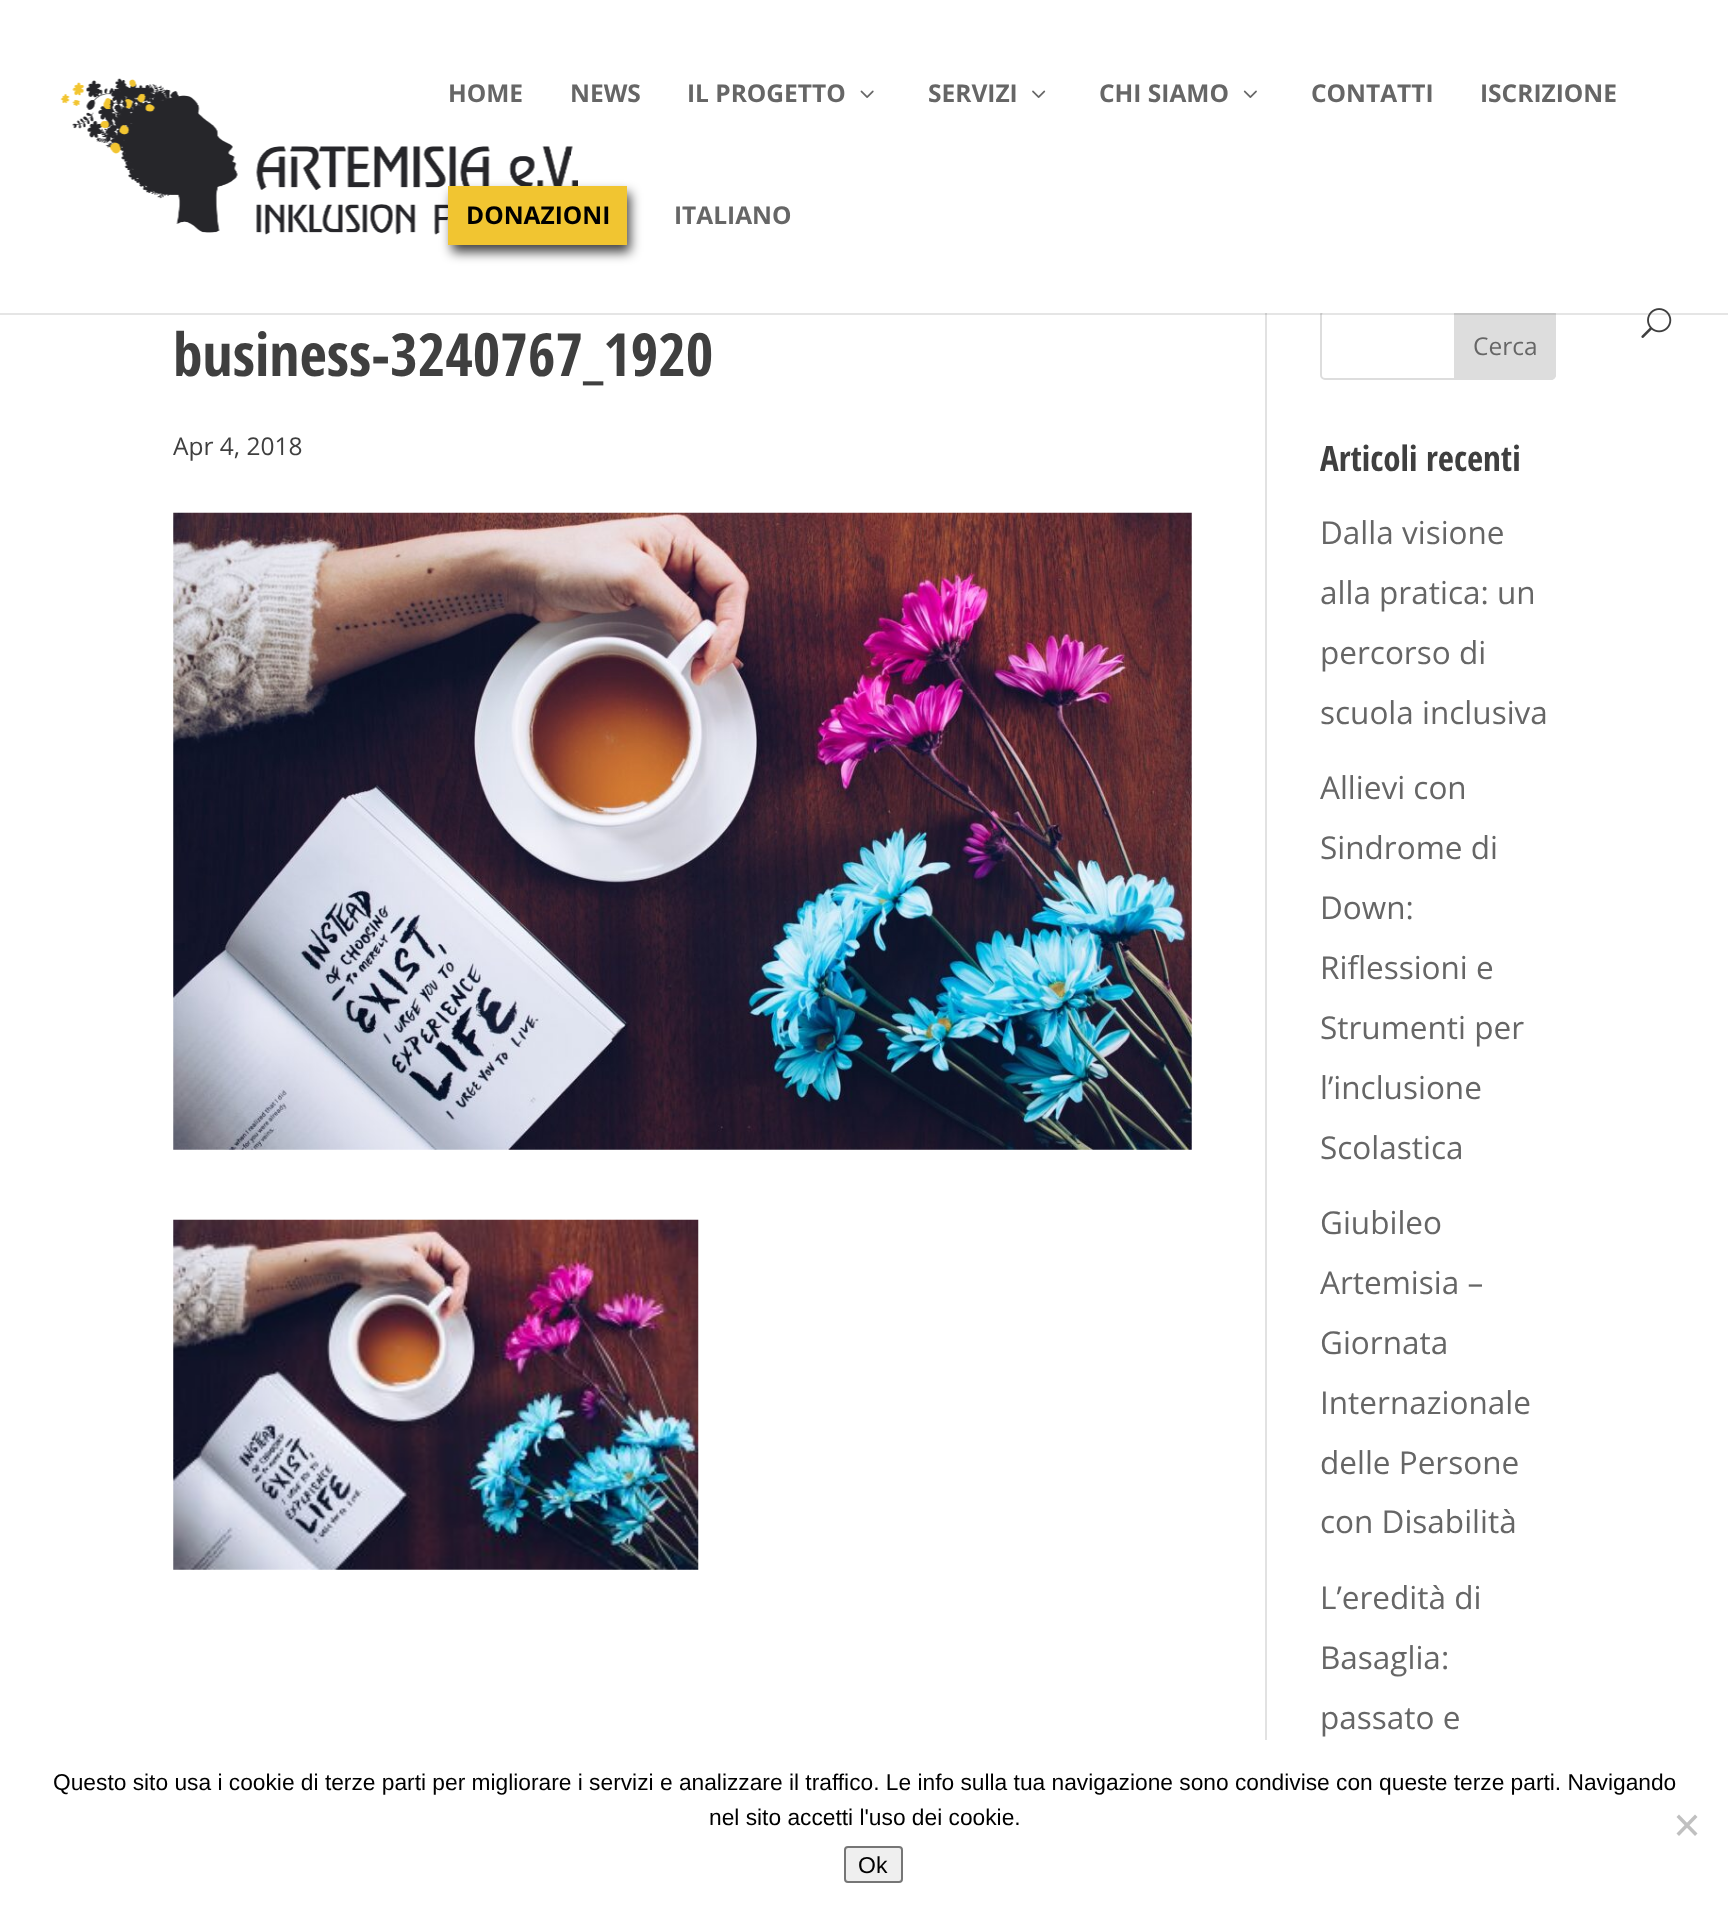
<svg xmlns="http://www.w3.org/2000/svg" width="1728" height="1908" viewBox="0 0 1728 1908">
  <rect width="100%" height="100%" fill="rgb(255,255,255)"/>
  <rect x="1265" y="313" width="2" height="1427" fill="rgb(226,226,226)"/>
  <rect x="1321" y="311" width="234" height="68" rx="4" fill="none" stroke="rgb(221,221,221)" stroke-width="2"/>
  <path d="M1455 311H1551C1553 311 1555 313 1555 315V375C1555 377 1553 379 1551 379H1455Z" fill="rgb(221,221,221)" stroke="rgb(221,221,221)" stroke-width="2"/>
  <rect x="0" y="313" width="1728" height="2" fill="rgba(0,0,0,0.1)"/>
  <rect x="1320" y="310" width="236" height="3" fill="rgb(255,255,255)"/>
  <image x="60" y="78" width="518" height="157" href="pic1.png"/>
  <g font-family="Open Sans" font-size="24.5" font-weight="bold" fill="rgb(102,102,102)">
    <text x="448" y="102">HOME</text>
    <text x="570" y="102">NEWS</text>
    <text x="687" y="102">IL PROGETTO</text>
  </g>
  <image x="860" y="90" width="14" height="8" href="pic2.png"/>
  <text x="928" y="102" font-family="Open Sans" font-size="24.5" font-weight="bold" fill="rgb(102,102,102)">SERVIZI</text>
  <image x="1032" y="90" width="14" height="8" href="pic3.png"/>
  <text x="1099" y="102" font-family="Open Sans" font-size="24.5" font-weight="bold" fill="rgb(102,102,102)">CHI SIAMO</text>
  <image x="1243" y="90" width="14" height="8" href="pic4.png"/>
  <g font-family="Open Sans" font-size="24.5" font-weight="bold" fill="rgb(102,102,102)">
    <text x="1311" y="102">CONTATTI</text>
    <text x="1480" y="102">ISCRIZIONE</text>
  </g>
  <rect x="452" y="193" width="178" height="59" fill="rgba(0,0,0,0.75)" filter="blur(6px)"/>
  <rect x="448" y="186" width="179" height="59" fill="rgb(241,197,49)"/>
  <text x="466" y="224" font-family="Open Sans" font-size="24.5" font-weight="bold" fill="rgb(0,0,0)">DONAZIONI</text>
  <text x="674" y="224" font-family="Open Sans" font-size="24.5" font-weight="bold" fill="rgb(102,102,102)">ITALIANO</text>
  <image x="1641" y="308" width="31" height="30" href="pic5.png"/>
  <text x="173" y="376" font-family="Open Sans Condensed" font-size="59.5" font-weight="bold" fill="rgb(63,63,63)">business-3240767_1920</text>
  <text x="173" y="455" font-family="Open Sans" font-size="24.5" fill="rgb(63,63,63)">Apr 4, 2018</text>
  <image x="173" y="512" width="1019" height="638" href="pic6.png"/>
  <image x="173" y="1219" width="526" height="351" href="pic7.png"/>
  <text x="1473" y="355" font-family="Open Sans" font-size="24.5" fill="rgb(102,102,102)">Cerca</text>
  <text x="1320" y="471" font-family="Open Sans Condensed" font-size="35" font-weight="bold" fill="rgb(63,63,63)">Articoli recenti</text>
  <g font-family="Open Sans" font-size="31.5" fill="rgb(102,102,102)">
    <text>
      <tspan x="1320" y="544">Dalla visione</tspan>
      <tspan x="1320" y="604">alla pratica: un</tspan>
      <tspan x="1320" y="664">percorso di</tspan>
      <tspan x="1320" y="724">scuola inclusiva</tspan>
    </text>
    <text>
      <tspan x="1320" y="799">Allievi con</tspan>
      <tspan x="1320" y="859">Sindrome di</tspan>
      <tspan x="1320" y="919">Down:</tspan>
      <tspan x="1320" y="979">Riflessioni e</tspan>
      <tspan x="1320" y="1039">Strumenti per</tspan>
      <tspan x="1320" y="1099">l’inclusione</tspan>
      <tspan x="1320" y="1159">Scolastica</tspan>
    </text>
    <text>
      <tspan x="1320" y="1234">Giubileo</tspan>
      <tspan x="1320" y="1294">Artemisia –</tspan>
      <tspan x="1320" y="1354">Giornata</tspan>
      <tspan x="1320" y="1414">Internazionale</tspan>
      <tspan x="1320" y="1474">delle Persone</tspan>
      <tspan x="1320" y="1533">con Disabilità</tspan>
    </text>
    <text>
      <tspan x="1320" y="1609">L’eredità di</tspan>
      <tspan x="1320" y="1669">Basaglia:</tspan>
      <tspan x="1320" y="1729">passato e</tspan>
    </text>
  </g>
  <g font-family="Liberation Sans" font-size="22.75" fill="rgb(0,0,0)">
    <text x="53" y="1790">Questo sito usa i cookie di terze parti per migliorare i servizi e analizzare il traffico. Le info sulla tua navigazione sono condivise con queste terze parti. Navigando</text>
    <text x="709" y="1825">nel sito accetti l'uso dei cookie.</text>
  </g>
  <path d="M1695 1814.5L1697.5 1817L1679 1836L1676.5 1833.5Z" fill="rgb(192,192,192)"/>
  <path d="M1676.5 1817L1679 1814.5L1697.5 1833.5L1695 1836Z" fill="rgb(192,192,192)"/>
  <rect x="845" y="1847" width="57" height="35" rx="3" fill="rgb(239,239,239)" stroke="rgb(118,118,118)" stroke-width="2"/>
  <text x="858" y="1873" font-family="Liberation Sans" font-size="23" fill="rgb(0,0,0)">Ok</text>
</svg>
